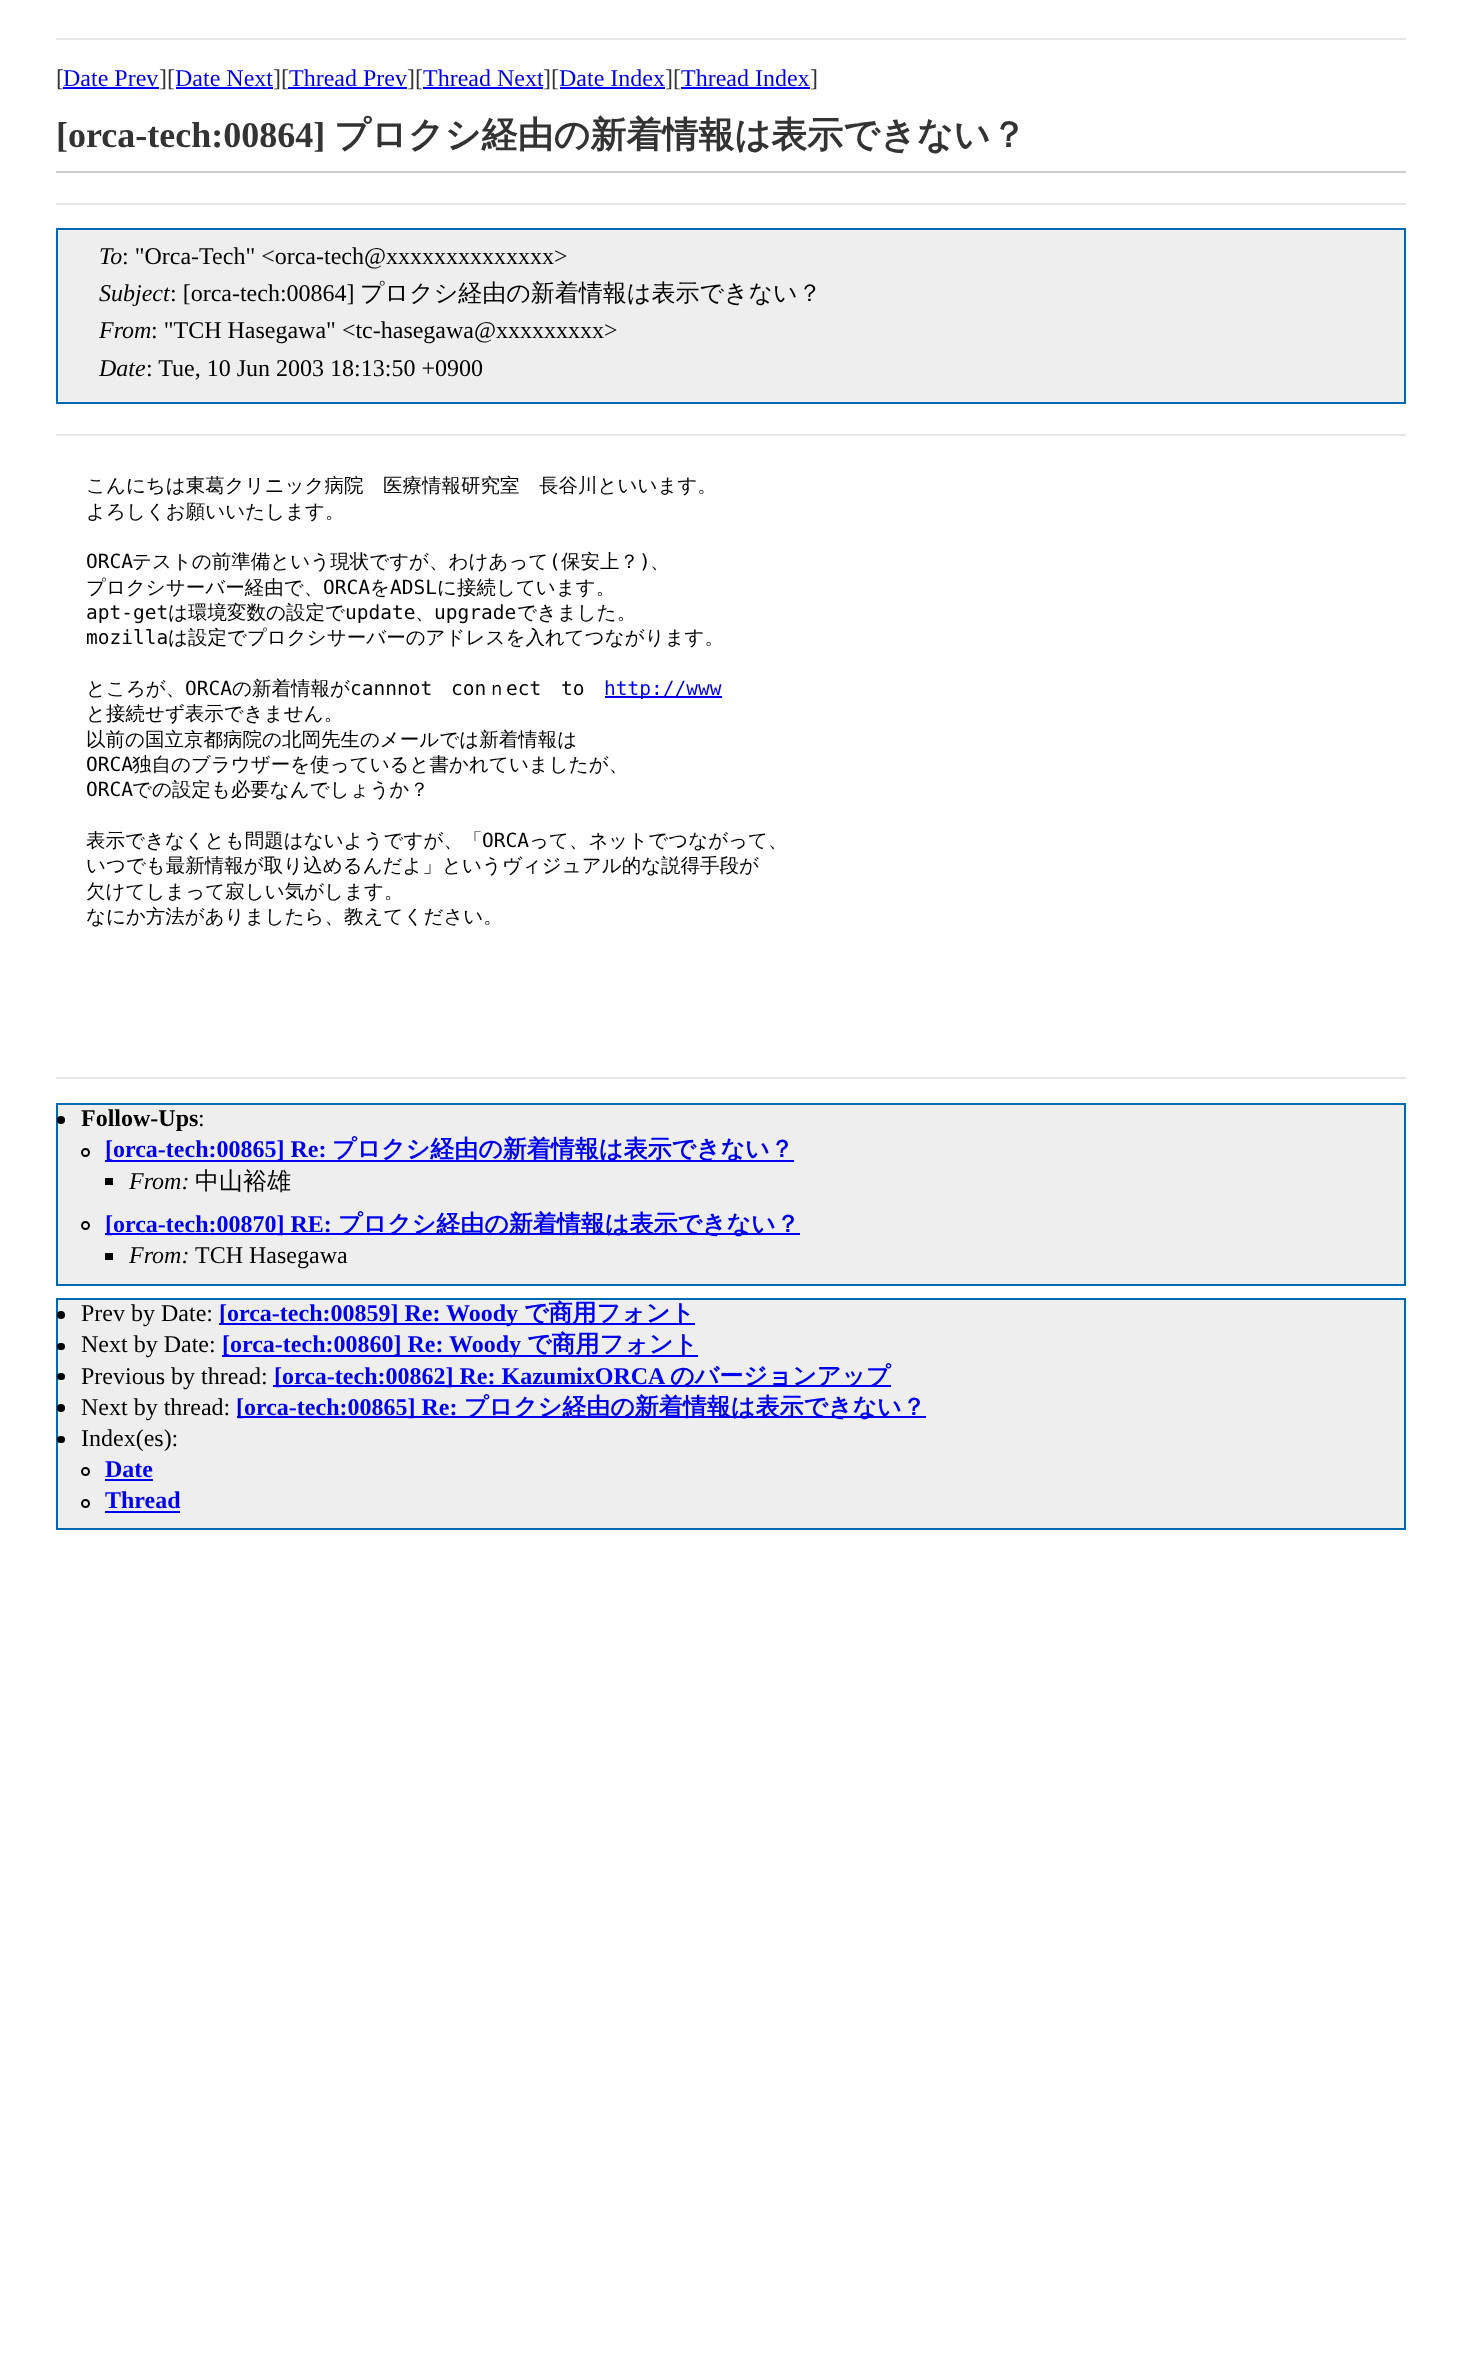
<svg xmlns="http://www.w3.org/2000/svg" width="1461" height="2376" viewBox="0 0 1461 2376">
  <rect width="100%" height="100%" fill="rgb(255,255,255)"/>
  <rect x="56" y="38" width="1350" height="2" fill="rgb(230,230,230)"/>
  <text x="56" y="86" font-family="Liberation Serif" font-size="24" fill="rgb(51,51,51)">[</text>
  <text x="63" y="86" font-family="Liberation Serif" font-size="24" fill="rgb(0,0,238)">Date Prev</text>
  <rect x="63" y="87" width="96" height="2" fill="rgb(0,0,238)"/>
  <text x="159" y="86" font-family="Liberation Serif" font-size="24" fill="rgb(51,51,51)">][</text>
  <text x="175" y="86" font-family="Liberation Serif" font-size="24" fill="rgb(0,0,238)">Date Next</text>
  <rect x="176" y="87" width="97" height="2" fill="rgb(0,0,238)"/>
  <text x="273" y="86" font-family="Liberation Serif" font-size="24" fill="rgb(51,51,51)">][</text>
  <text x="289" y="86" font-family="Liberation Serif" font-size="24" fill="rgb(0,0,238)">Thread Prev</text>
  <rect x="288" y="87" width="119" height="2" fill="rgb(0,0,238)"/>
  <text x="407" y="86" font-family="Liberation Serif" font-size="24" fill="rgb(51,51,51)">][</text>
  <text x="423" y="86" font-family="Liberation Serif" font-size="24" fill="rgb(0,0,238)">Thread Next</text>
  <rect x="423" y="87" width="120" height="2" fill="rgb(0,0,238)"/>
  <text x="543" y="86" font-family="Liberation Serif" font-size="24" fill="rgb(51,51,51)">][</text>
  <text x="559" y="86" font-family="Liberation Serif" font-size="24" fill="rgb(0,0,238)">Date Index</text>
  <rect x="560" y="87" width="105" height="2" fill="rgb(0,0,238)"/>
  <text x="665" y="86" font-family="Liberation Serif" font-size="24" fill="rgb(51,51,51)">][</text>
  <text x="681" y="86" font-family="Liberation Serif" font-size="24" fill="rgb(0,0,238)">Thread Index</text>
  <rect x="681" y="87" width="129" height="2" fill="rgb(0,0,238)"/>
  <text x="810" y="86" font-family="Liberation Serif" font-size="24" fill="rgb(51,51,51)">]</text>
  <rect x="56" y="171" width="1350" height="2" fill="rgb(204,204,204)"/>
  <text x="56" y="147" font-family="Liberation Serif" font-size="36" font-weight="bold" fill="rgb(51,51,51)">[orca-tech:00864]</text>
  <text x="334" y="147" font-family="WenQuanYi Zen Hei" font-size="36" font-weight="bold" fill="rgb(51,51,51)">プロクシ経由の新着情報は表示できない？</text>
  <rect x="56" y="203" width="1350" height="2" fill="rgb(230,230,230)"/>
  <rect x="57" y="229" width="1348" height="174" fill="rgb(238,238,238)" stroke="rgb(0,106,176)" stroke-width="2"/>
  <text x="99" y="264" font-family="Liberation Serif" font-size="24" font-style="italic" fill="rgb(0,0,0)">To</text>
  <text x="122" y="264" font-family="Liberation Serif" font-size="24" fill="rgb(0,0,0)">: "Orca-Tech" &lt;orca-tech@xxxxxxxxxxxxxx&gt;</text>
  <text x="99" y="301" font-family="Liberation Serif" font-size="24" font-style="italic" fill="rgb(0,0,0)">Subject</text>
  <text x="170" y="301" font-family="Liberation Serif" font-size="24" fill="rgb(0,0,0)">: [orca-tech:00864]</text>
  <text x="360" y="301" font-family="WenQuanYi Zen Hei" font-size="24" font-weight="500" fill="rgb(0,0,0)">プロクシ経由の新着情報は表示できない？</text>
  <text x="99" y="338" font-family="Liberation Serif" font-size="24" font-style="italic" fill="rgb(0,0,0)">From</text>
  <text x="151" y="338" font-family="Liberation Serif" font-size="24" fill="rgb(0,0,0)">: "TCH Hasegawa" &lt;tc-hasegawa@xxxxxxxxx&gt;</text>
  <text x="99" y="376" font-family="Liberation Serif" font-size="24" font-style="italic" fill="rgb(0,0,0)">Date</text>
  <text x="146" y="376" font-family="Liberation Serif" font-size="24" fill="rgb(0,0,0)">: Tue, 10 Jun 2003 18:13:50 +0900</text>
  <rect x="56" y="434" width="1350" height="2" fill="rgb(230,230,230)"/>
  <g font-family="WenQuanYi Zen Hei" font-size="19.5" font-weight="500" fill="rgb(0,0,0)">
    <text>
      <tspan x="86" y="492">こんにちは東葛クリニック病院　医療情報研究室　長谷川といいます。</tspan>
      <tspan x="86" y="518">よろしくお願いいたします。</tspan>
    </text>
  </g>
  <text x="86" y="568" font-family="DejaVu Sans Mono" font-size="19.5" fill="rgb(0,0,0)">ORCA</text>
  <text x="132" y="568" font-family="WenQuanYi Zen Hei" font-size="19.5" font-weight="500" fill="rgb(0,0,0)">テストの前準備という現状ですが、わけあって</text>
  <text x="549" y="568" font-family="DejaVu Sans Mono" font-size="19.5" fill="rgb(0,0,0)">(</text>
  <text x="561" y="568" font-family="WenQuanYi Zen Hei" font-size="19.5" font-weight="500" fill="rgb(0,0,0)">保安上？</text>
  <text x="639" y="568" font-family="DejaVu Sans Mono" font-size="19.5" fill="rgb(0,0,0)">)</text>
  <g font-family="WenQuanYi Zen Hei" font-size="19.5" font-weight="500" fill="rgb(0,0,0)">
    <text x="650" y="568">、</text>
    <text x="86" y="594">プロクシサーバー経由で、</text>
  </g>
  <text x="323" y="594" font-family="DejaVu Sans Mono" font-size="19.5" fill="rgb(0,0,0)">ORCA</text>
  <text x="370" y="594" font-family="WenQuanYi Zen Hei" font-size="19.5" font-weight="500" fill="rgb(0,0,0)">を</text>
  <text x="390" y="594" font-family="DejaVu Sans Mono" font-size="19.5" fill="rgb(0,0,0)">ADSL</text>
  <text x="437" y="594" font-family="WenQuanYi Zen Hei" font-size="19.5" font-weight="500" fill="rgb(0,0,0)">に接続しています。</text>
  <text x="86" y="619" font-family="DejaVu Sans Mono" font-size="19.5" fill="rgb(0,0,0)">apt-get</text>
  <text x="168" y="619" font-family="WenQuanYi Zen Hei" font-size="19.5" font-weight="500" fill="rgb(0,0,0)">は環境変数の設定で</text>
  <text x="345" y="619" font-family="DejaVu Sans Mono" font-size="19.5" fill="rgb(0,0,0)">update</text>
  <text x="415" y="619" font-family="WenQuanYi Zen Hei" font-size="19.5" font-weight="500" fill="rgb(0,0,0)">、</text>
  <text x="434" y="619" font-family="DejaVu Sans Mono" font-size="19.5" fill="rgb(0,0,0)">upgrade</text>
  <text x="517" y="619" font-family="WenQuanYi Zen Hei" font-size="19.5" font-weight="500" fill="rgb(0,0,0)">できました。</text>
  <text x="86" y="644" font-family="DejaVu Sans Mono" font-size="19.5" fill="rgb(0,0,0)">mozilla</text>
  <g font-family="WenQuanYi Zen Hei" font-size="19.5" font-weight="500" fill="rgb(0,0,0)">
    <text x="168" y="644">は設定でプロクシサーバーのアドレスを入れてつながります。</text>
    <text x="86" y="695">ところが、</text>
  </g>
  <text x="185" y="695" font-family="DejaVu Sans Mono" font-size="19.5" fill="rgb(0,0,0)">ORCA</text>
  <text x="232" y="695" font-family="WenQuanYi Zen Hei" font-size="19.5" font-weight="500" fill="rgb(0,0,0)">の新着情報が</text>
  <g font-family="DejaVu Sans Mono" font-size="19.5" fill="rgb(0,0,0)">
    <text x="350" y="695">cannnot</text>
    <text x="451" y="695">con</text>
  </g>
  <text x="487" y="695" font-family="WenQuanYi Zen Hei" font-size="19.5" font-weight="500" fill="rgb(0,0,0)">ｎ</text>
  <g font-family="DejaVu Sans Mono" font-size="19.5" fill="rgb(0,0,0)">
    <text x="506" y="695">ect</text>
    <text x="561" y="695">to</text>
  </g>
  <rect x="605" y="696" width="117" height="2" fill="rgb(0,0,238)"/>
  <text x="604" y="695" font-family="DejaVu Sans Mono" font-size="19.5" fill="rgb(0,0,238)">http://www</text>
  <g font-family="WenQuanYi Zen Hei" font-size="19.5" font-weight="500" fill="rgb(0,0,0)">
    <text>
      <tspan x="86" y="720">と接続せず表示できません。</tspan>
      <tspan x="86" y="746">以前の国立京都病院の北岡先生のメールでは新着情報は</tspan>
    </text>
  </g>
  <text x="86" y="771" font-family="DejaVu Sans Mono" font-size="19.5" fill="rgb(0,0,0)">ORCA</text>
  <text x="132" y="771" font-family="WenQuanYi Zen Hei" font-size="19.5" font-weight="500" fill="rgb(0,0,0)">独自のブラウザーを使っていると書かれていましたが、</text>
  <text x="86" y="796" font-family="DejaVu Sans Mono" font-size="19.5" fill="rgb(0,0,0)">ORCA</text>
  <g font-family="WenQuanYi Zen Hei" font-size="19.5" font-weight="500" fill="rgb(0,0,0)">
    <text x="132" y="796">での設定も必要なんでしょうか？</text>
    <text x="86" y="847">表示できなくとも問題はないようですが、「</text>
  </g>
  <text x="482" y="847" font-family="DejaVu Sans Mono" font-size="19.5" fill="rgb(0,0,0)">ORCA</text>
  <g font-family="WenQuanYi Zen Hei" font-size="19.5" font-weight="500" fill="rgb(0,0,0)">
    <text x="529" y="847">って、ネットでつながって、</text>
    <text>
      <tspan x="86" y="872">いつでも最新情報が取り込めるんだよ」というヴィジュアル的な説得手段が</tspan>
      <tspan x="86" y="898">欠けてしまって寂しい気がします。</tspan>
      <tspan x="86" y="923">なにか方法がありましたら、教えてください。</tspan>
    </text>
  </g>
  <rect x="56" y="1077" width="1350" height="2" fill="rgb(230,230,230)"/>
  <rect x="57" y="1104" width="1348" height="181" fill="rgb(238,238,238)" stroke="rgb(0,106,176)" stroke-width="2"/>
  <circle cx="61" cy="1120" r="4" fill="rgb(0,0,0)"/>
  <text x="81" y="1126" font-family="Liberation Serif" font-size="24" font-weight="bold" fill="rgb(0,0,0)">Follow-Ups</text>
  <text x="198" y="1126" font-family="Liberation Serif" font-size="24" fill="rgb(0,0,0)">:</text>
  <circle cx="85.5" cy="1152.5" r="3.5" fill="none" stroke="rgb(0,0,0)" stroke-width="2"/>
  <rect x="105" y="1160" width="689" height="2" fill="rgb(0,0,238)"/>
  <text x="105" y="1157" font-family="Liberation Serif" font-size="24" font-weight="bold" fill="rgb(0,0,238)">[orca-tech:00865] Re:</text>
  <text x="332" y="1157" font-family="WenQuanYi Zen Hei" font-size="24" font-weight="bold" fill="rgb(0,0,238)">プロクシ経由の新着情報は表示できない？</text>
  <rect x="105" y="1178" width="8" height="7" fill="rgb(0,0,0)"/>
  <text x="129" y="1189" font-family="Liberation Serif" font-size="24" font-style="italic" fill="rgb(0,0,0)">From:</text>
  <text x="195" y="1189" font-family="WenQuanYi Zen Hei" font-size="24" font-weight="500" fill="rgb(0,0,0)">中山裕雄</text>
  <circle cx="85.5" cy="1225.5" r="3.5" fill="none" stroke="rgb(0,0,0)" stroke-width="2"/>
  <rect x="105" y="1233" width="695" height="2" fill="rgb(0,0,238)"/>
  <text x="105" y="1232" font-family="Liberation Serif" font-size="24" font-weight="bold" fill="rgb(0,0,238)">[orca-tech:00870] RE:</text>
  <text x="338" y="1232" font-family="WenQuanYi Zen Hei" font-size="24" font-weight="bold" fill="rgb(0,0,238)">プロクシ経由の新着情報は表示できない？</text>
  <rect x="105" y="1253" width="8" height="7" fill="rgb(0,0,0)"/>
  <text x="129" y="1263" font-family="Liberation Serif" font-size="24" font-style="italic" fill="rgb(0,0,0)">From:</text>
  <text x="195" y="1263" font-family="Liberation Serif" font-size="24" fill="rgb(0,0,0)">TCH Hasegawa</text>
  <rect x="57" y="1299" width="1348" height="230" fill="rgb(238,238,238)" stroke="rgb(0,106,176)" stroke-width="2"/>
  <circle cx="61" cy="1315" r="4" fill="rgb(0,0,0)"/>
  <text x="81" y="1321" font-family="Liberation Serif" font-size="24" fill="rgb(0,0,0)">Prev by Date:</text>
  <rect x="219" y="1323" width="476" height="2" fill="rgb(0,0,238)"/>
  <text x="219" y="1321" font-family="Liberation Serif" font-size="24" font-weight="bold" fill="rgb(0,0,238)">[orca-tech:00859] Re: Woody</text>
  <text x="524" y="1321" font-family="WenQuanYi Zen Hei" font-size="24" font-weight="bold" fill="rgb(0,0,238)">で商用フォント</text>
  <rect x="57" y="1343" width="8" height="7" rx="3.5" fill="rgb(0,0,0)"/>
  <text x="81" y="1352" font-family="Liberation Serif" font-size="24" fill="rgb(0,0,0)">Next by Date:</text>
  <rect x="222" y="1355" width="476" height="2" fill="rgb(0,0,238)"/>
  <text x="222" y="1352" font-family="Liberation Serif" font-size="24" font-weight="bold" fill="rgb(0,0,238)">[orca-tech:00860] Re: Woody</text>
  <text x="527" y="1352" font-family="WenQuanYi Zen Hei" font-size="24" font-weight="bold" fill="rgb(0,0,238)">で商用フォント</text>
  <rect x="57" y="1373" width="8" height="7" rx="3.5" fill="rgb(0,0,0)"/>
  <text x="81" y="1384" font-family="Liberation Serif" font-size="24" fill="rgb(0,0,0)">Previous by thread:</text>
  <rect x="273" y="1385" width="618" height="2" fill="rgb(0,0,238)"/>
  <text x="274" y="1384" font-family="Liberation Serif" font-size="24" font-weight="bold" fill="rgb(0,0,238)">[orca-tech:00862] Re: KazumixORCA</text>
  <text x="670" y="1384" font-family="WenQuanYi Zen Hei" font-size="24" font-weight="bold" fill="rgb(0,0,238)">のバージョンアップ</text>
  <circle cx="61" cy="1408" r="4" fill="rgb(0,0,0)"/>
  <text x="81" y="1415" font-family="Liberation Serif" font-size="24" fill="rgb(0,0,0)">Next by thread:</text>
  <rect x="237" y="1416" width="689" height="2" fill="rgb(0,0,238)"/>
  <text x="236" y="1415" font-family="Liberation Serif" font-size="24" font-weight="bold" fill="rgb(0,0,238)">[orca-tech:00865] Re:</text>
  <text x="464" y="1415" font-family="WenQuanYi Zen Hei" font-size="24" font-weight="bold" fill="rgb(0,0,238)">プロクシ経由の新着情報は表示できない？</text>
  <rect x="57" y="1436" width="8" height="7" rx="3.5" fill="rgb(0,0,0)"/>
  <text x="81" y="1446" font-family="Liberation Serif" font-size="24" fill="rgb(0,0,0)">Index(es):</text>
  <circle cx="85.5" cy="1471.5" r="3.5" fill="none" stroke="rgb(0,0,0)" stroke-width="2"/>
  <text x="105" y="1477" font-family="Liberation Serif" font-size="24" font-weight="bold" fill="rgb(0,0,238)">Date</text>
  <rect x="105" y="1479" width="48" height="2" fill="rgb(0,0,238)"/>
  <circle cx="85.5" cy="1503.5" r="3.5" fill="none" stroke="rgb(0,0,0)" stroke-width="2"/>
  <text x="105" y="1508" font-family="Liberation Serif" font-size="24" font-weight="bold" fill="rgb(0,0,238)">Thread</text>
  <rect x="105" y="1511" width="75" height="2" fill="rgb(0,0,238)"/>
</svg>
